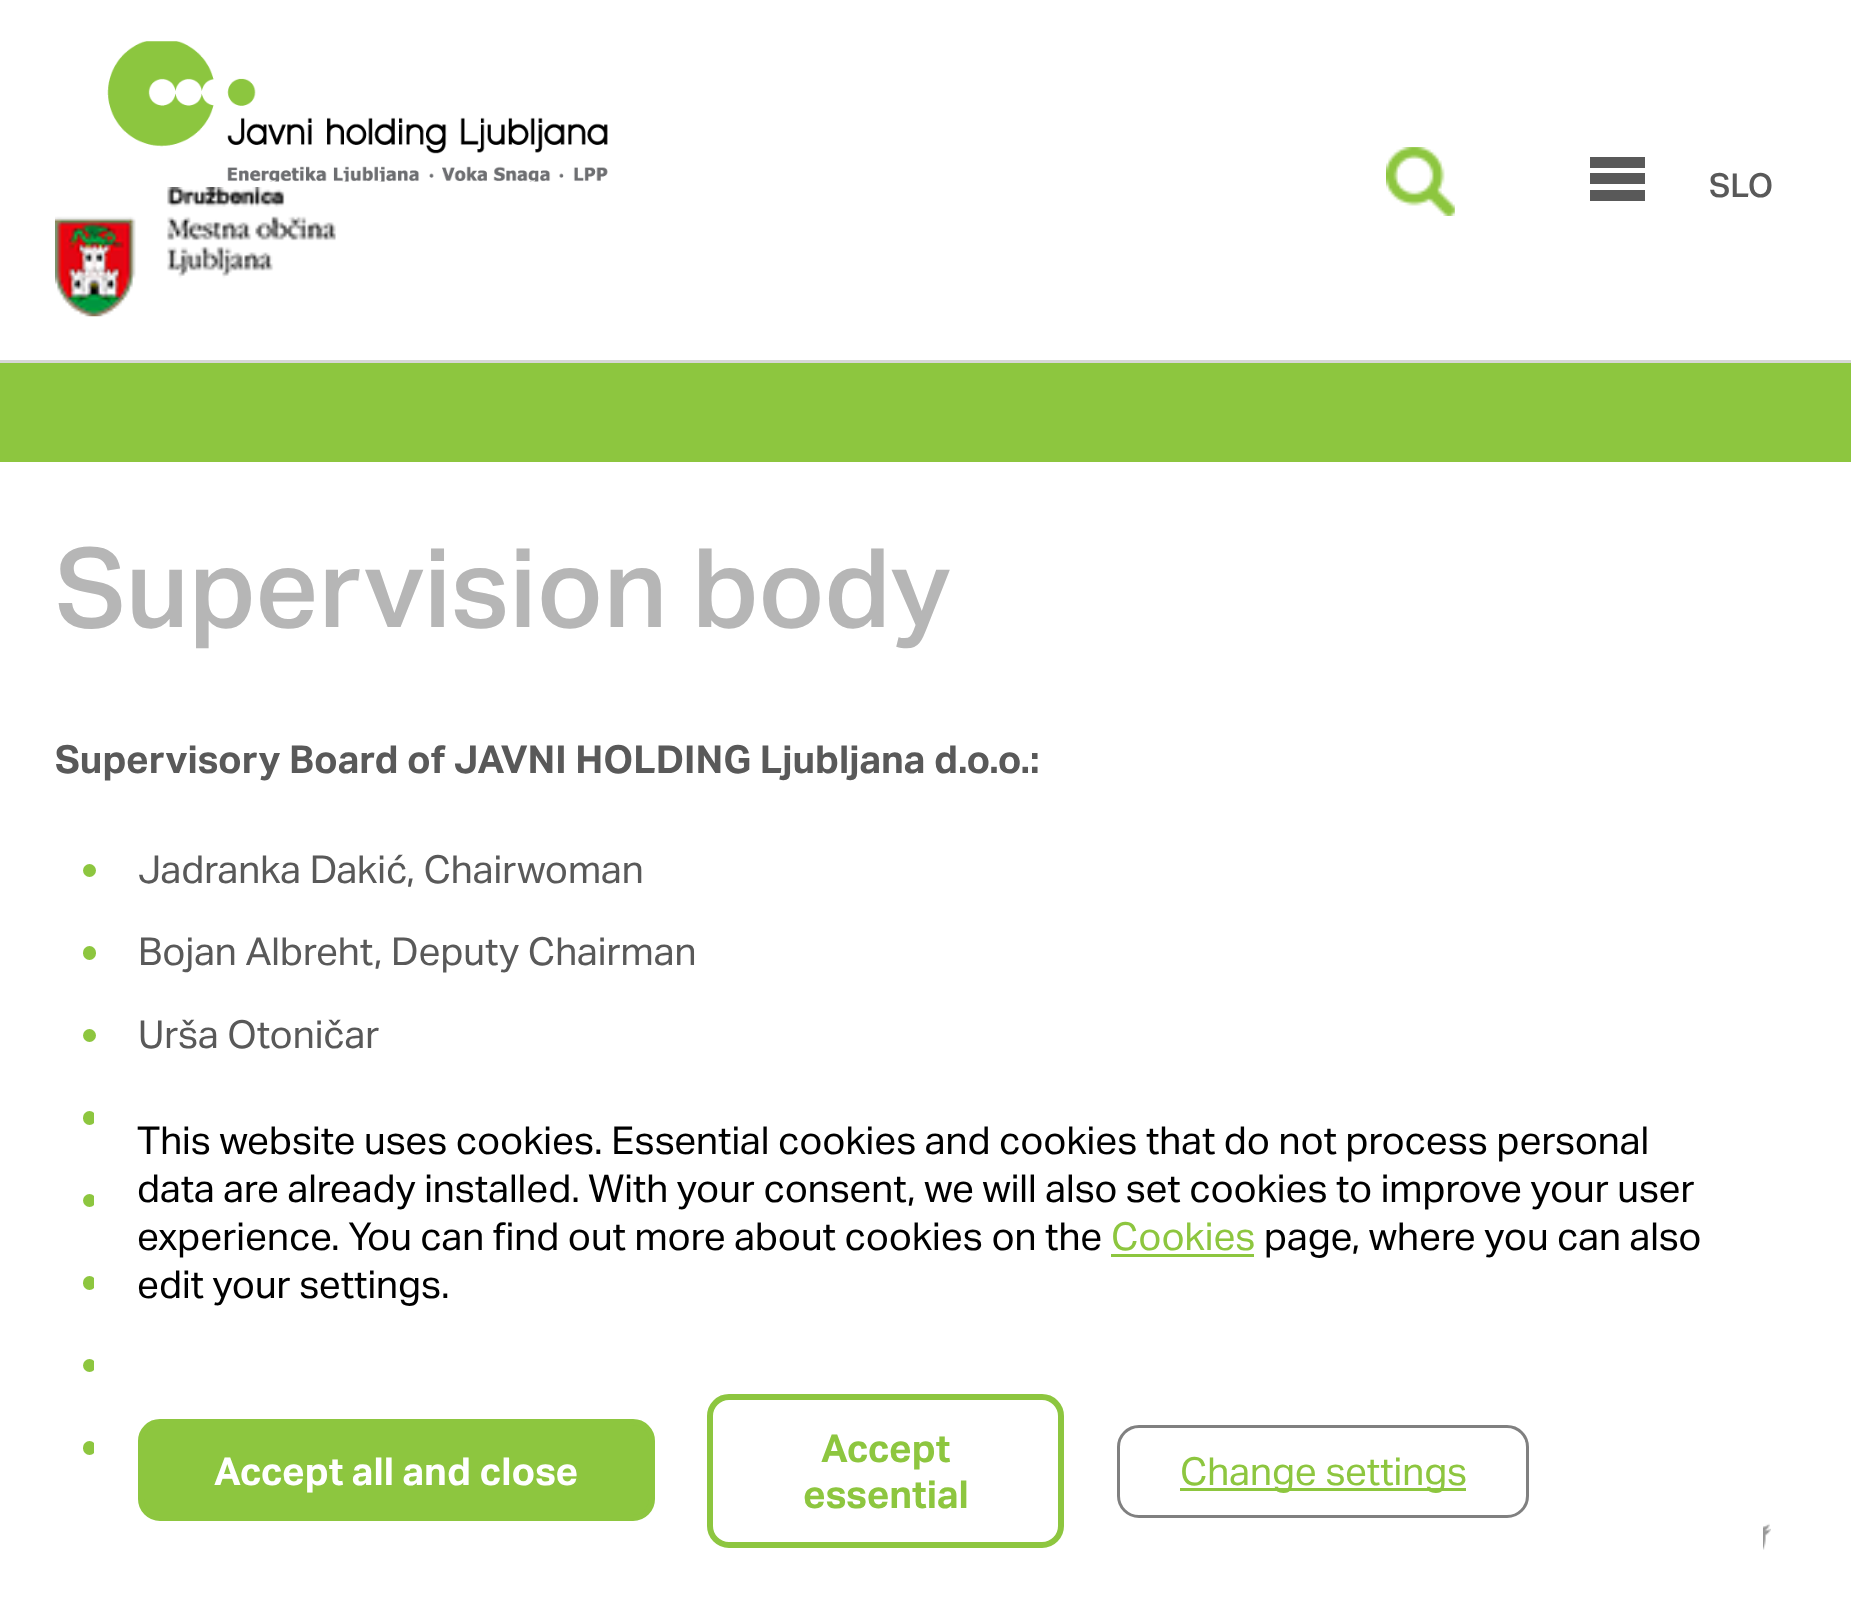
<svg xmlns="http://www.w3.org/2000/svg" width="1851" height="1604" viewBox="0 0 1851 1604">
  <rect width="100%" height="100%" fill="rgb(255,255,255)"/>
  <rect x="0" y="360" width="1851" height="3" fill="rgb(215,215,215)"/>
  <image x="107" y="41" width="501" height="141" href="pic1.png"/>
  <image x="55" y="187" width="281" height="130" href="pic2.png"/>
  <image x="1386" y="147" width="69" height="69" href="pic3.png"/>
  <rect x="1590" y="157" width="55" height="11" fill="rgb(89,89,89)"/>
  <rect x="1590" y="173" width="55" height="11" fill="rgb(89,89,89)"/>
  <rect x="1590" y="190" width="55" height="11" fill="rgb(89,89,89)"/>
  <text x="1709" y="197" font-family="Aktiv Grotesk" font-size="33" font-weight="500" fill="rgb(89,89,89)">SLO</text>
  <rect x="0" y="363" width="1851" height="99" fill="rgb(141,198,63)"/>
  <text x="55" y="627" font-family="Aktiv Grotesk" font-size="110" font-weight="500" fill="rgb(182,182,182)">Supervision body</text>
  <text x="55" y="773" font-family="Aktiv Grotesk" font-size="38.5" font-weight="bold" fill="rgb(89,89,89)">Supervisory Board of JAVNI HOLDING Ljubljana d.o.o.:</text>
  <circle cx="89.5" cy="870.5" r="6.5" fill="rgb(141,198,63)"/>
  <text x="138" y="883" font-family="Aktiv Grotesk" font-size="38.5" fill="rgb(89,89,89)">Jadranka Dakić, Chairwoman</text>
  <rect x="83" y="946" width="13" height="14" rx="6.5" fill="rgb(141,198,63)"/>
  <text x="138" y="965" font-family="Aktiv Grotesk" font-size="38.5" fill="rgb(89,89,89)">Bojan Albreht, Deputy Chairman</text>
  <circle cx="89.5" cy="1035.5" r="6.5" fill="rgb(141,198,63)"/>
  <text x="138" y="1048" font-family="Aktiv Grotesk" font-size="38.5" fill="rgb(89,89,89)">Urša Otoničar</text>
  <rect x="83" y="1111" width="13" height="14" rx="6.5" fill="rgb(141,198,63)"/>
  <circle cx="89.5" cy="1200.5" r="6.5" fill="rgb(141,198,63)"/>
  <rect x="83" y="1276" width="13" height="14" rx="6.5" fill="rgb(141,198,63)"/>
  <circle cx="89.5" cy="1365.5" r="6.5" fill="rgb(141,198,63)"/>
  <rect x="83" y="1441" width="13" height="14" rx="6.5" fill="rgb(141,198,63)"/>
  <image x="1763" y="1523" width="8" height="27" href="pic4.png"/>
  <rect x="94" y="1067" width="1669" height="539" rx="44" fill="rgb(255,255,255)"/>
  <g font-family="Aktiv Grotesk" font-size="38.5" fill="rgb(0,0,0)">
    <text>
      <tspan x="137" y="1154">This website uses cookies. Essential cookies and cookies that do not process personal</tspan>
      <tspan x="137" y="1202">data are already installed. With your consent, we will also set cookies to improve your user</tspan>
      <tspan x="137" y="1250">experience. You can find out more about cookies on the</tspan>
    </text>
  </g>
  <text x="1111" y="1250" font-family="Aktiv Grotesk" font-size="38.5" fill="rgb(141,198,63)">Cookies</text>
  <rect x="1111" y="1254" width="143" height="3" fill="rgb(141,198,63)"/>
  <g font-family="Aktiv Grotesk" font-size="38.5" fill="rgb(0,0,0)">
    <text x="1264" y="1250">page, where you can also</text>
    <text x="137" y="1298">edit your settings.</text>
  </g>
  <rect x="141" y="1422" width="511" height="96" rx="19" fill="rgb(141,198,63)" stroke="rgb(141,198,63)" stroke-width="6"/>
  <text x="214" y="1485" font-family="Aktiv Grotesk" font-size="38.5" font-weight="bold" fill="rgb(255,255,255)">Accept all and close</text>
  <rect x="710" y="1397" width="351" height="148" rx="19" fill="none" stroke="rgb(141,198,63)" stroke-width="6"/>
  <g font-family="Aktiv Grotesk" font-size="38.5" font-weight="bold" fill="rgb(141,198,63)">
    <text x="821" y="1462">Accept</text>
    <text x="803" y="1508">essential</text>
  </g>
  <rect x="1118.5" y="1426.5" width="409" height="90" rx="20.5" fill="none" stroke="rgb(128,128,128)" stroke-width="3"/>
  <rect x="1180" y="1488" width="286" height="3" fill="rgb(141,198,63)"/>
  <text x="1180" y="1485" font-family="Aktiv Grotesk" font-size="38.5" fill="rgb(141,198,63)">Change settings</text>
</svg>
